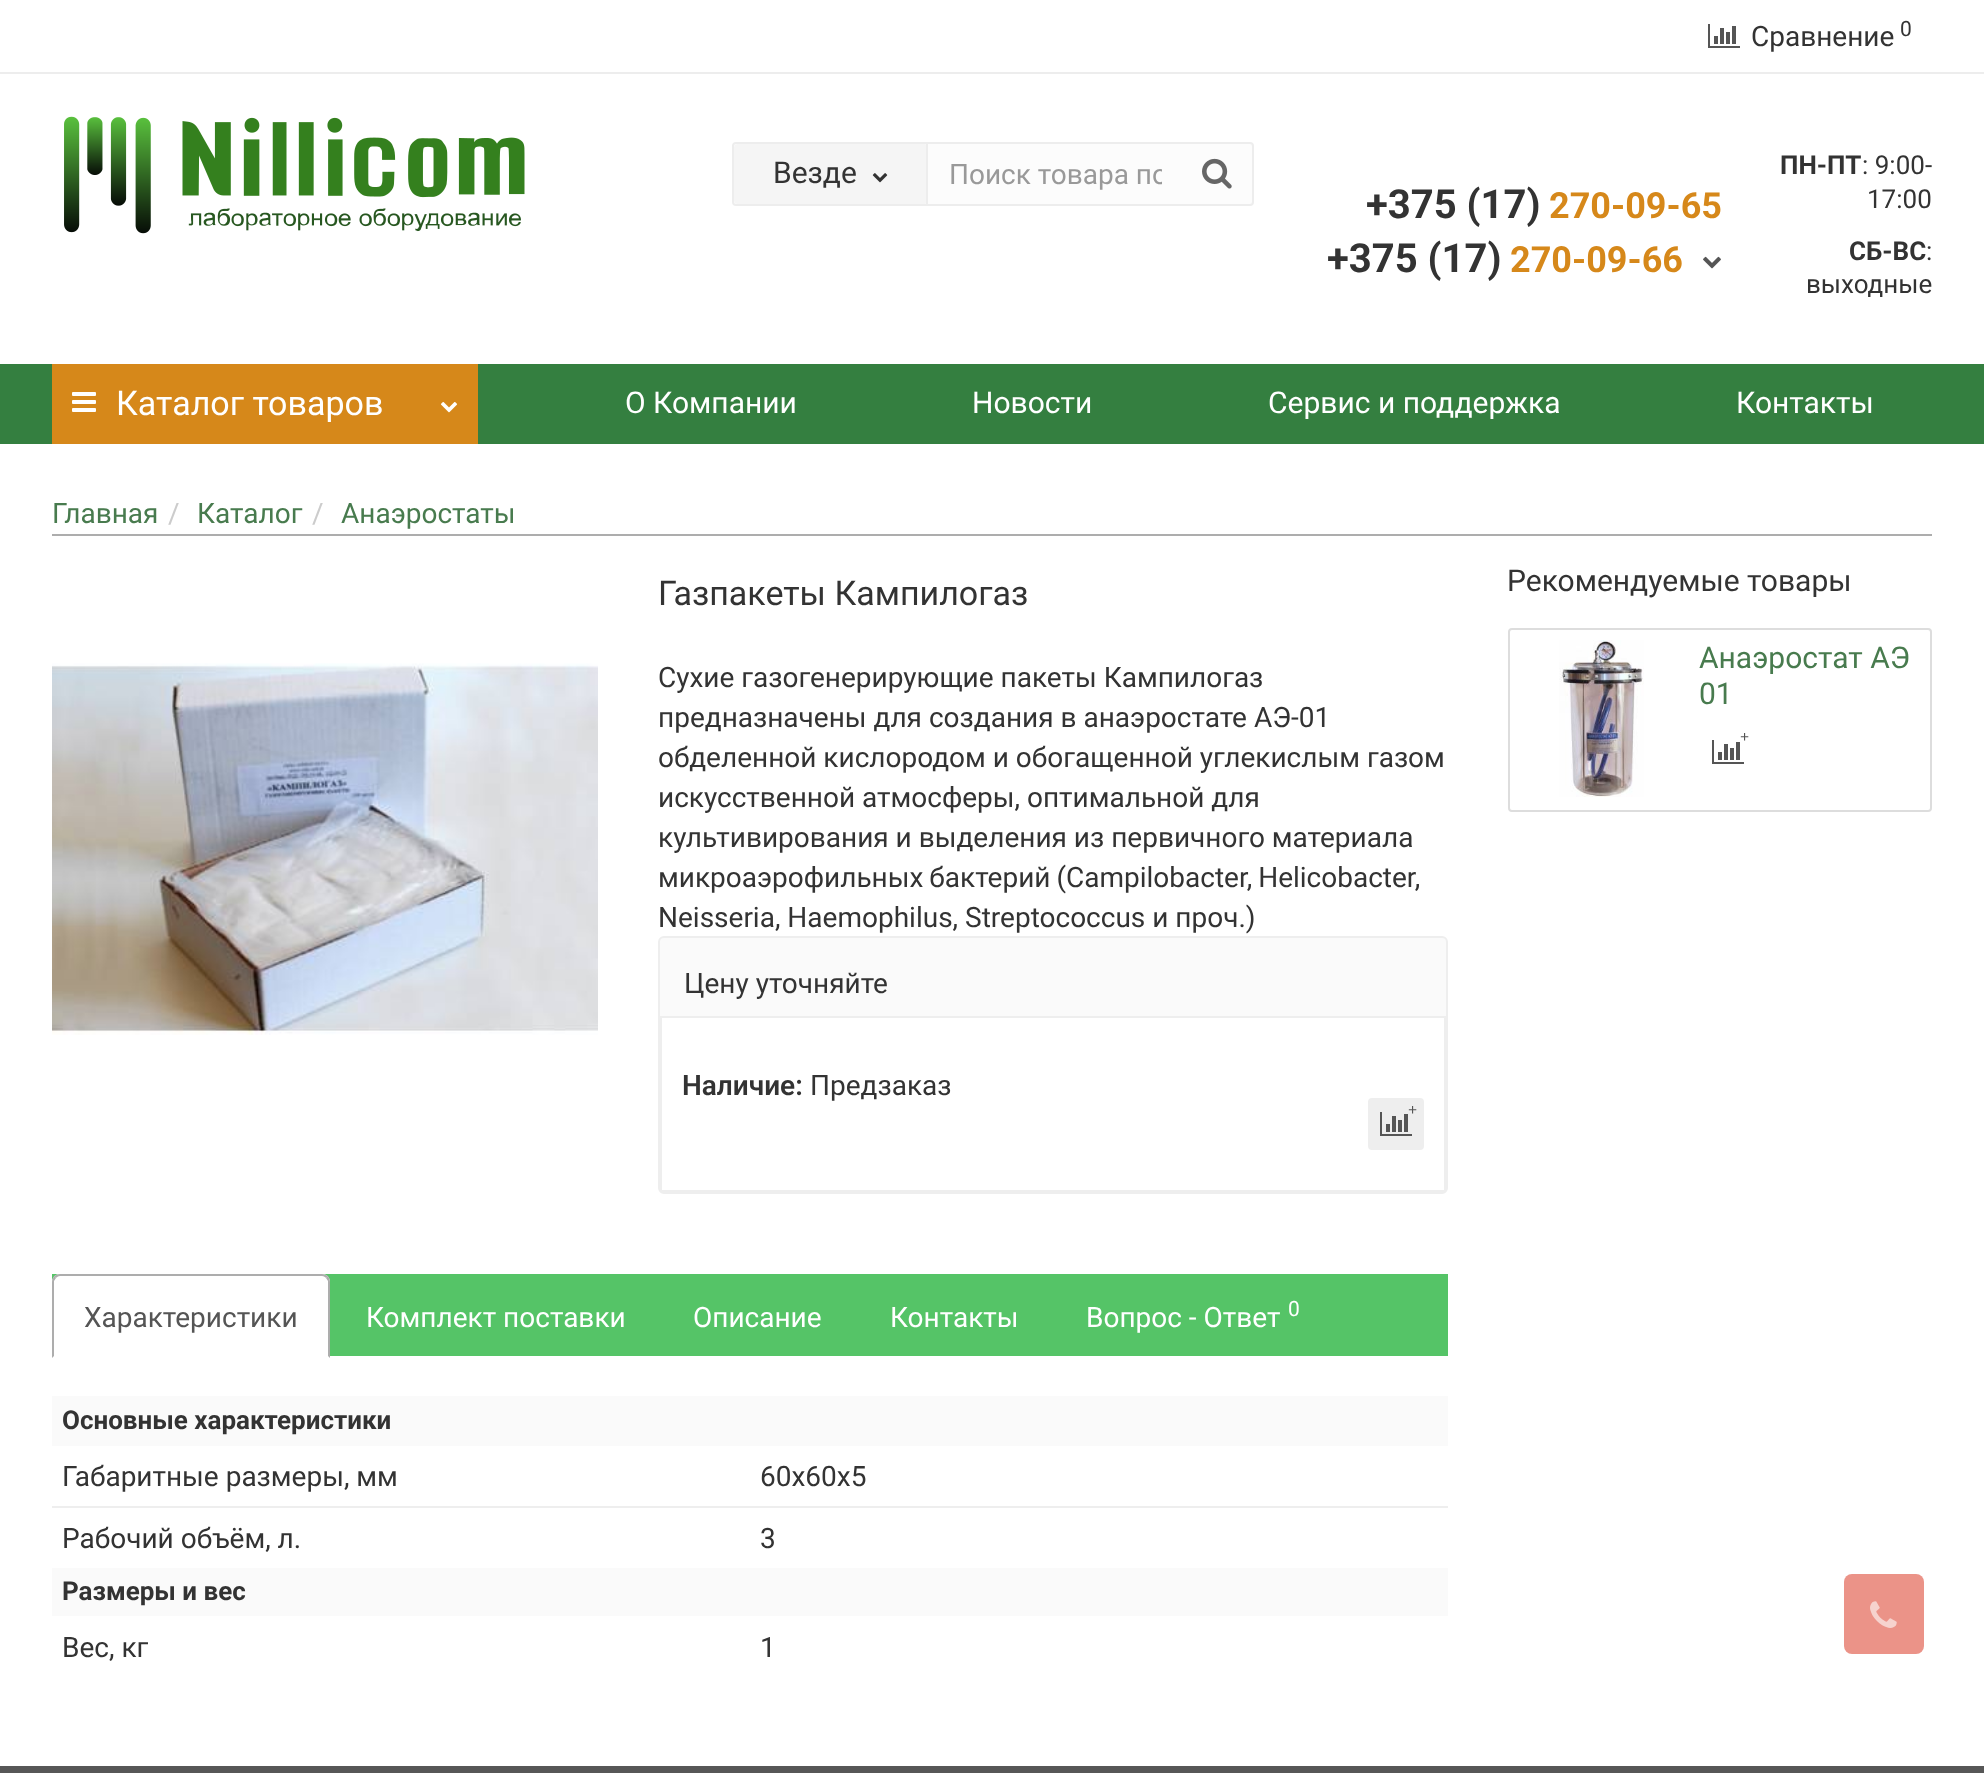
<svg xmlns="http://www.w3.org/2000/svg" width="1984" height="1773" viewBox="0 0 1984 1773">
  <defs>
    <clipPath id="clip1"><rect x="948" y="158" width="214" height="32"/></clipPath>
  </defs>
  <rect width="100%" height="100%" fill="rgb(255,255,255)"/>
  <rect x="0" y="72" width="1984" height="2" fill="rgb(237,237,237)"/>
  <image x="1708" y="24" width="32" height="24" href="pic1.png"/>
  <text x="1751" y="46" font-family="Roboto" font-size="28" fill="rgb(51,51,51)">Сравнение</text>
  <text x="1900" y="36" font-family="Roboto" font-size="21" fill="rgb(51,51,51)">0</text>
  <image x="64" y="116" width="461" height="118" href="pic2.png"/>
  <rect x="733" y="143" width="520" height="62" rx="3" fill="rgb(252,252,252)" stroke="rgb(237,237,237)" stroke-width="2"/>
  <rect x="734" y="144" width="194" height="60" rx="4" fill="rgb(245,245,245)"/>
  <text x="773" y="183" font-family="Roboto" font-size="30" fill="rgb(51,51,51)">Везде</text>
  <image x="872" y="173" width="16" height="10" href="pic3.png"/>
  <rect x="926" y="144" width="2" height="60" fill="rgb(237,237,237)"/>
  <g clip-path="url(#clip1)">
    <text x="949" y="184" font-family="Roboto" font-size="28" fill="rgb(153,153,153)">Поиск товара по</text>
  </g>
  <image x="1202" y="158" width="30" height="31" href="pic4.png"/>
  <text x="1366" y="218" font-family="Roboto" font-size="40" font-weight="bold" fill="rgb(51,51,51)">+375 (17)</text>
  <text x="1549" y="218" font-family="Roboto" font-size="36" font-weight="bold" fill="rgb(214,136,26)">270-09-65</text>
  <text x="1327" y="272" font-family="Roboto" font-size="40" font-weight="bold" fill="rgb(51,51,51)">+375 (17)</text>
  <text x="1510" y="272" font-family="Roboto" font-size="36" font-weight="bold" fill="rgb(214,136,26)">270-09-66</text>
  <image x="1703" y="256" width="18" height="13" href="pic5.png"/>
  <text x="1780" y="174" font-family="Roboto" font-size="26" font-weight="bold" fill="rgb(51,51,51)">ПН-ПТ</text>
  <g font-family="Roboto" font-size="26" fill="rgb(51,51,51)">
    <text x="1862" y="174">: 9:00-</text>
    <text x="1867" y="208">17:00</text>
  </g>
  <text x="1849" y="260" font-family="Roboto" font-size="26" font-weight="bold" fill="rgb(51,51,51)">СБ-ВС</text>
  <g font-family="Roboto" font-size="26" fill="rgb(51,51,51)">
    <text x="1926" y="260">:</text>
    <text x="1806" y="293">выходные</text>
  </g>
  <rect x="0" y="364" width="1984" height="80" fill="rgb(52,127,64)"/>
  <rect x="52" y="364" width="426" height="80" fill="rgb(214,136,26)"/>
  <image x="72" y="392" width="24" height="20" href="pic6.png"/>
  <text x="116" y="415" font-family="Roboto" font-size="34" fill="rgb(255,255,255)">Каталог товаров</text>
  <image x="440" y="402" width="18" height="11" href="pic7.png"/>
  <g font-family="Roboto" font-size="30" fill="rgb(255,255,255)">
    <text x="625" y="413">О Компании</text>
    <text x="972" y="413">Новости</text>
    <text x="1268" y="413">Сервис и поддержка</text>
    <text x="1736" y="413">Контакты</text>
  </g>
  <rect x="52" y="534" width="1880" height="2" fill="rgb(173,173,173)"/>
  <text x="52" y="523" font-family="Roboto" font-size="28" fill="rgb(72,123,78)">Главная</text>
  <text x="168" y="523" font-family="Roboto" font-size="28" fill="rgb(204,204,204)">/</text>
  <text x="197" y="523" font-family="Roboto" font-size="28" fill="rgb(72,123,78)">Каталог</text>
  <text x="312" y="523" font-family="Roboto" font-size="28" fill="rgb(204,204,204)">/</text>
  <text x="341" y="523" font-family="Roboto" font-size="28" fill="rgb(72,123,78)">Анаэростаты</text>
  <image x="52" y="663" width="546" height="372" href="pic8.png"/>
  <text x="658" y="605" font-family="Roboto" font-size="34" fill="rgb(51,51,51)">Газпакеты Кампилогаз</text>
  <g font-family="Roboto" font-size="28" fill="rgb(51,51,51)">
    <text>
      <tspan x="658" y="687">Сухие газогенерирующие пакеты Кампилогаз</tspan>
      <tspan x="658" y="727">предназначены для создания в анаэростате АЭ-01</tspan>
      <tspan x="658" y="767">обделенной кислородом и обогащенной углекислым газом</tspan>
      <tspan x="658" y="807">искусственной атмосферы, оптимальной для</tspan>
      <tspan x="658" y="847">культивирования и выделения из первичного материала</tspan>
      <tspan x="658" y="887" word-spacing="-1">микроаэрофильных бактерий (Campilobacter, Helicobacter,</tspan>
      <tspan x="658" y="927">Neisseria, Haemophilus, Streptococcus и проч.)</tspan>
    </text>
  </g>
  <rect x="659" y="937" width="788" height="256" rx="5" fill="rgb(250,250,250)" stroke="rgb(238,238,238)" stroke-width="2"/>
  <text x="684" y="993" font-family="Roboto" font-size="28" fill="rgb(51,51,51)">Цену уточняйте</text>
  <rect x="661" y="1017" width="784" height="174" fill="rgb(255,255,255)" stroke="rgb(238,238,238)" stroke-width="2"/>
  <text x="682" y="1095" font-family="Roboto" font-size="28" font-weight="600" fill="rgb(51,51,51)">Наличие:</text>
  <text x="810" y="1095" font-family="Roboto" font-size="28" fill="rgb(51,51,51)">Предзаказ</text>
  <rect x="1370" y="1100" width="52" height="48" rx="2" fill="rgb(238,238,238)" stroke="rgb(238,238,238)" stroke-width="4"/>
  <image x="1380" y="1112" width="32" height="24" href="pic9.png"/>
  <text x="1408" y="1115" font-family="Liberation Serif" font-size="16" font-weight="bold" fill="rgb(85,85,85)">+</text>
  <rect x="52" y="1274" width="1396" height="82" fill="rgb(85,196,103)"/>
  <path d="M60 1274H322C326.5 1274 330 1277.5 330 1282V1358H52V1282C52 1277.5 55.5 1274 60 1274Z" fill="rgb(255,255,255)"/>
  <path d="M60 1274C58 1274 56 1275 54 1276L56 1278C57 1277 58 1276 60 1276H322C324 1276 325 1277 326 1278L328 1276C326 1275 324 1274 322 1274Z" fill="rgb(173,173,173)"/>
  <path d="M330 1358V1282C330 1280 329 1278 328 1276L326 1278L328 1281V1356Z" fill="rgb(173,173,173)"/>
  <path d="M52 1358L54 1356V1281L56 1278L54 1276C53 1278 52 1280 52 1282Z" fill="rgb(173,173,173)"/>
  <text x="84" y="1327" font-family="Roboto" font-size="28" fill="rgb(85,85,85)">Характеристики</text>
  <g font-family="Roboto" font-size="28" fill="rgb(255,255,255)">
    <text x="366" y="1327">Комплект поставки</text>
    <text x="693" y="1327">Описание</text>
    <text x="890" y="1327">Контакты</text>
    <text x="1086" y="1327">Вопрос - Ответ</text>
  </g>
  <text x="1288" y="1316" font-family="Roboto" font-size="21" fill="rgb(255,255,255)">0</text>
  <rect x="52" y="1396" width="1396" height="50" fill="rgb(250,250,250)"/>
  <text x="62" y="1429" font-family="Roboto" font-size="26" font-weight="bold" fill="rgb(51,51,51)">Основные характеристики</text>
  <g font-family="Roboto" font-size="28" fill="rgb(51,51,51)">
    <text x="62" y="1486">Габаритные размеры, мм</text>
    <text x="760" y="1486">60х60х5</text>
    <text x="62" y="1548">Рабочий объём, л.</text>
  </g>
  <rect x="52" y="1506" width="1396" height="2" fill="rgb(238,238,238)"/>
  <text x="760" y="1548" font-family="Roboto" font-size="28" fill="rgb(51,51,51)">3</text>
  <rect x="52" y="1568" width="1396" height="48" fill="rgb(250,250,250)"/>
  <text x="62" y="1600" font-family="Roboto" font-size="26" font-weight="bold" fill="rgb(51,51,51)">Размеры и вес</text>
  <g font-family="Roboto" font-size="28" fill="rgb(51,51,51)">
    <text x="62" y="1657">Вес, кг</text>
    <text x="760" y="1657">1</text>
  </g>
  <text x="1507" y="591" font-family="Roboto" font-size="30" fill="rgb(51,51,51)">Рекомендуемые товары</text>
  <rect x="1509" y="629" width="422" height="182" rx="3" fill="none" stroke="rgb(221,221,221)" stroke-width="2"/>
  <image x="1559" y="640" width="85" height="157" href="pic10.png"/>
  <g font-family="Roboto" font-size="30" fill="rgb(72,123,78)">
    <text>
      <tspan x="1699" y="668">Анаэростат АЭ</tspan>
      <tspan x="1699" y="704">01</tspan>
    </text>
  </g>
  <image x="1712" y="740" width="32" height="24" href="pic1.png"/>
  <text x="1740" y="742" font-family="Liberation Serif" font-size="16" font-weight="bold" fill="rgb(85,85,85)">+</text>
  <rect x="0" y="1766" width="1984" height="7" fill="rgb(87,87,87)"/>
  <rect x="1844" y="1574" width="80" height="80" rx="8" fill="rgb(235,147,136)"/>
  <image x="1870" y="1601" width="27" height="27" href="pic11.png"/>
</svg>
